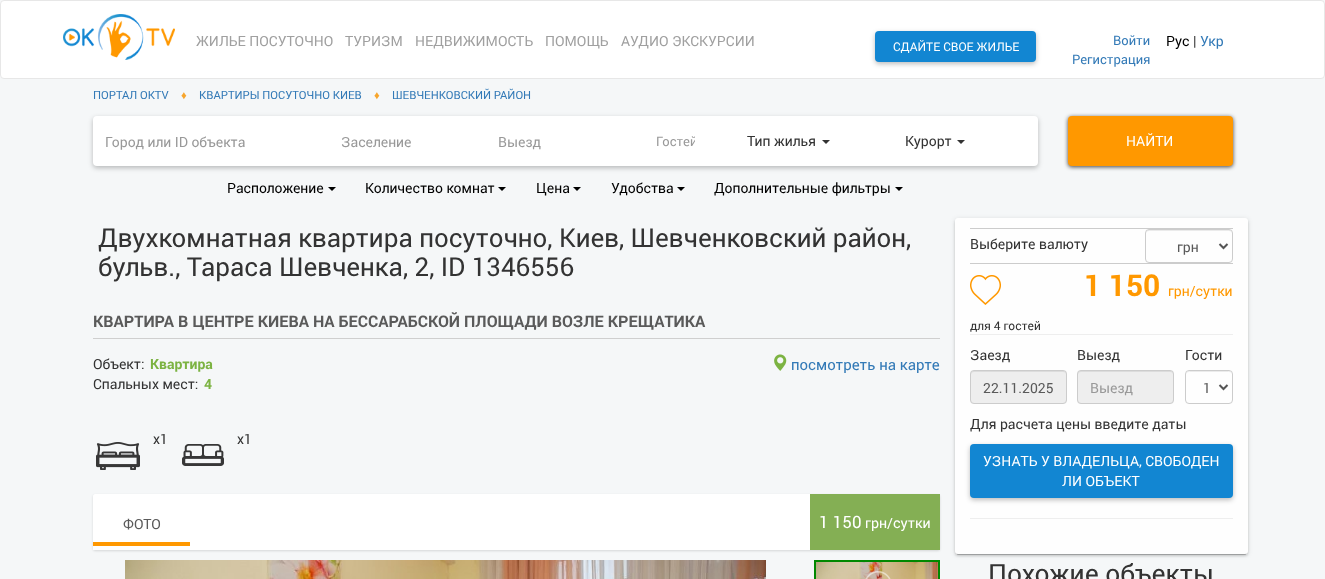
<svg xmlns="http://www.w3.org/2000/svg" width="1325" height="579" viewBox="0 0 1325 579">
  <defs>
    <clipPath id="clip1"><rect x="656" y="132" width="39" height="18"/></clipPath>
  </defs>
  <rect width="100%" height="100%" fill="rgb(245,247,248)"/>
  <rect x="0.5" y="0.5" width="1324" height="78" rx="3.5" fill="rgb(255,255,255)" stroke="rgb(231,231,231)"/>
  <image x="63" y="14" width="112" height="46" href="pic1.png"/>
  <g font-family="Roboto" font-size="14" fill="rgb(160,160,160)">
    <text x="196" y="46">ЖИЛЬЕ ПОСУТОЧНО</text>
    <text x="345" y="46">ТУРИЗМ</text>
    <text x="415" y="46">НЕДВИЖИМОСТЬ</text>
    <text x="545" y="46">ПОМОЩЬ</text>
    <text x="621" y="46">АУДИО ЭКСКУРСИИ</text>
  </g>
  <rect x="875" y="33" width="161" height="31" rx="4" fill="rgba(0,0,0,0.26)" filter="blur(2.5px)"/>
  <rect x="875" y="31" width="161" height="31" rx="4" fill="rgb(18,134,210)"/>
  <text x="893" y="51" font-family="Roboto" font-size="12" fill="rgb(255,255,255)">СДАЙТЕ СВОЕ ЖИЛЬЕ</text>
  <g font-family="Roboto" font-size="13" fill="rgb(51,122,183)">
    <text x="1113" y="45">Войти</text>
    <text x="1072" y="64">Регистрация</text>
  </g>
  <text x="1166" y="46" font-family="Roboto" font-size="14" fill="rgb(0,0,0)">Рус</text>
  <text x="1193" y="46" font-family="Roboto" font-size="14" fill="rgb(51,51,51)">|</text>
  <text x="1200" y="46" font-family="Roboto" font-size="14" fill="rgb(51,122,183)">Укр</text>
  <text x="93" y="99" font-family="Roboto" font-size="11.25" fill="rgb(51,122,183)">ПОРТАЛ OKTV</text>
  <text x="181" y="99" font-family="Liberation Serif" font-size="11.25" fill="rgb(247,165,45)">♦</text>
  <text x="199" y="99" font-family="Roboto" font-size="11.25" fill="rgb(51,122,183)">КВАРТИРЫ ПОСУТОЧНО КИЕВ</text>
  <text x="374" y="99" font-family="Liberation Serif" font-size="11.25" fill="rgb(247,165,45)">♦</text>
  <text x="392" y="99" font-family="Roboto" font-size="11.25" fill="rgb(51,122,183)">ШЕВЧЕНКОВСКИЙ РАЙОН</text>
  <rect x="93" y="118" width="945" height="50" rx="4" fill="rgba(0,0,0,0.25)" filter="blur(2.5px)"/>
  <rect x="93" y="116" width="945" height="50" rx="4" fill="rgb(255,255,255)"/>
  <g font-family="Roboto" font-size="14" fill="rgb(153,153,153)">
    <text x="105" y="147">Город или ID объекта</text>
    <text x="341" y="147">Заселение</text>
    <text x="498" y="147">Выезд</text>
  </g>
  <g clip-path="url(#clip1)">
    <text x="656" y="146" font-family="Roboto" font-size="13" fill="rgb(153,153,153)">Гостей</text>
  </g>
  <text x="747" y="146" font-family="Roboto" font-size="14" fill="rgb(51,51,51)">Тип жилья</text>
  <path d="M822 140H830L826 144Z" fill="rgb(51,51,51)"/>
  <text x="905" y="146" font-family="Roboto" font-size="14" fill="rgb(51,51,51)">Курорт</text>
  <path d="M957 140H965L961 144Z" fill="rgb(51,51,51)"/>
  <rect x="1068" y="117" width="165" height="50" rx="4" fill="rgba(0,0,0,0.73)" filter="blur(2px)"/>
  <rect x="1068" y="116" width="165" height="50" rx="4" fill="rgb(255,152,0)"/>
  <text x="1126" y="146" font-family="Roboto" font-size="14" fill="rgb(255,255,255)">НАЙТИ</text>
  <text x="227" y="193" font-family="Roboto" font-size="14" fill="rgb(0,0,0)">Расположение</text>
  <path d="M328 187H336L332 191Z" fill="rgb(0,0,0)"/>
  <text x="365" y="193" font-family="Roboto" font-size="14" fill="rgb(0,0,0)">Количество комнат</text>
  <path d="M498 187H506L502 191Z" fill="rgb(0,0,0)"/>
  <text x="536" y="193" font-family="Roboto" font-size="14" fill="rgb(0,0,0)">Цена</text>
  <path d="M573 187H581L577 191Z" fill="rgb(0,0,0)"/>
  <text x="611" y="193" font-family="Roboto" font-size="14" fill="rgb(0,0,0)">Удобства</text>
  <path d="M677 187H685L681 191Z" fill="rgb(0,0,0)"/>
  <text x="714" y="193" font-family="Roboto" font-size="14" fill="rgb(0,0,0)">Дополнительные фильтры</text>
  <path d="M895 187H903L899 191Z" fill="rgb(0,0,0)"/>
  <g font-family="Roboto" font-size="26" fill="rgb(51,51,51)">
    <text>
      <tspan x="98" y="247">Двухкомнатная квартира посуточно, Киев, Шевченковский район,</tspan>
      <tspan x="98" y="276">бульв., Тараса Шевченка, 2, ID 1346556</tspan>
    </text>
  </g>
  <rect x="93" y="338" width="847" height="1" fill="rgb(207,207,207)"/>
  <text x="93" y="327" font-family="Roboto" font-size="16" font-weight="bold" fill="rgb(90,90,90)">КВАРТИРА В ЦЕНТРЕ КИЕВА НА БЕССАРАБСКОЙ ПЛОЩАДИ ВОЗЛЕ КРЕЩАТИКА</text>
  <text x="93" y="369" font-family="Roboto" font-size="14" fill="rgb(51,51,51)">Объект:</text>
  <text x="150" y="369" font-family="Roboto" font-size="14" font-weight="bold" fill="rgb(124,179,66)">Квартира</text>
  <text x="93" y="389" font-family="Roboto" font-size="14" fill="rgb(51,51,51)">Спальных мест:</text>
  <text x="204" y="389" font-family="Roboto" font-size="14" font-weight="bold" fill="rgb(124,179,66)">4</text>
  <image x="774" y="354" width="13" height="17" href="pic2.png"/>
  <text x="791" y="370" font-family="Roboto" font-size="15" fill="rgb(51,122,183)">посмотреть на карте</text>
  <text x="153" y="444" font-family="Roboto" font-size="14" fill="rgb(51,51,51)">x1</text>
  <image x="96" y="442" width="44" height="28" href="pic3.png"/>
  <text x="237" y="444" font-family="Roboto" font-size="14" fill="rgb(51,51,51)">x1</text>
  <image x="182" y="444" width="42" height="22" href="pic4.png"/>
  <rect x="93" y="495" width="847" height="56" rx="2" fill="rgba(0,0,0,0.13)" filter="blur(1px)"/>
  <path d="M95 494H938C939 494 940 495 940 496V550H93V496C93 495 94 494 95 494Z" fill="rgb(255,255,255)"/>
  <rect x="93" y="542" width="97" height="4" fill="rgb(255,152,0)"/>
  <text x="123" y="529" font-family="Roboto" font-size="14" fill="rgb(90,90,90)">ФОТО</text>
  <rect x="810" y="494" width="130" height="56" fill="rgb(132,175,84)"/>
  <text x="819" y="528" font-family="Roboto" font-size="17" fill="rgb(255,255,255)">1 150</text>
  <text x="865" y="528" font-family="Roboto" font-size="14.25" fill="rgb(255,255,255)">грн/сутки</text>
  <image x="125" y="560" width="641" height="19" href="pic5.png"/>
  <rect x="815" y="561" width="124" height="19" fill="none" stroke="rgb(0,136,0)" stroke-width="2"/>
  <image x="816" y="562" width="122" height="17" href="pic6.png"/>
  <image x="865" y="571" width="26" height="8" href="pic7.png"/>
  <rect x="955" y="219" width="293" height="336" rx="3" fill="rgba(0,0,0,0.12)" filter="blur(2.5px)"/>
  <rect x="955" y="220" width="293" height="336" rx="3" fill="rgba(0,0,0,0.14)" filter="blur(1px)"/>
  <rect x="957" y="223" width="289" height="332" rx="1" fill="rgba(0,0,0,0.2)" filter="blur(0.5px)"/>
  <rect x="955" y="218" width="293" height="336" rx="3" fill="rgb(254,254,254)"/>
  <rect x="970" y="228" width="263" height="1" fill="rgb(204,204,204)"/>
  <rect x="970" y="263" width="263" height="1" fill="rgb(204,204,204)"/>
  <text x="970" y="249" font-family="Roboto" font-size="14" fill="rgb(51,51,51)">Выберите валюту</text>
  <path d="M1149 231H1229C1231 231 1232 232 1232 234C1232 226 1219 230 1216 230H1162C1159 230 1146 226 1146 234C1146 232 1147 231 1149 231Z" fill="rgb(235,235,235)"/>
  <rect x="1145.5" y="229.5" width="87" height="33" rx="3.5" fill="none" stroke="rgb(204,204,204)"/>
  <path d="M1219.5 244L1223.5 248L1227.5 244" fill="none" stroke="rgb(85,85,85)" stroke-width="2"/>
  <text x="1177" y="252" font-family="Roboto" font-size="14" fill="rgb(90,90,90)">грн</text>
  <image x="970" y="275" width="31" height="30" href="pic8.png"/>
  <text x="1084" y="296" font-family="Roboto" font-size="30" font-weight="bold" fill="rgb(255,152,0)">1 150</text>
  <text x="1168" y="296" font-family="Roboto" font-size="14" fill="rgb(255,152,0)">грн/сутки</text>
  <text x="970" y="330" font-family="Roboto" font-size="12" fill="rgb(51,51,51)">для 4 гостей</text>
  <rect x="970" y="334" width="263" height="1" fill="rgb(238,238,238)"/>
  <text x="970" y="360" font-family="Roboto" font-size="14" fill="rgb(51,51,51)">Заезд</text>
  <rect x="970" y="370" width="97" height="34" rx="4" fill="rgb(238,238,238)"/>
  <path d="M974 372H1063C1065 372 1066 373 1066 375C1066 367 1051 371 1048 371H989C986 371 971 367 971 375C971 373 972 372 974 372Z" fill="rgb(220,220,220)"/>
  <rect x="970.5" y="370.5" width="96" height="33" rx="3.5" fill="none" stroke="rgb(204,204,204)"/>
  <text x="983" y="393" font-family="Roboto" font-size="14" fill="rgb(90,90,90)">22.11.2025</text>
  <text x="1077" y="360" font-family="Roboto" font-size="14" fill="rgb(51,51,51)">Выезд</text>
  <rect x="1077" y="370" width="97" height="34" rx="4" fill="rgb(238,238,238)"/>
  <path d="M1081 372H1170C1172 372 1173 373 1173 375C1173 367 1158 371 1155 371H1096C1093 371 1078 367 1078 375C1078 373 1079 372 1081 372Z" fill="rgb(220,220,220)"/>
  <rect x="1077.5" y="370.5" width="96" height="33" rx="3.5" fill="none" stroke="rgb(204,204,204)"/>
  <text x="1090" y="393" font-family="Roboto" font-size="14" fill="rgb(153,153,153)">Выезд</text>
  <text x="1185" y="360" font-family="Roboto" font-size="14" fill="rgb(51,51,51)">Гости</text>
  <path d="M1189 372H1229C1231 372 1232 373 1232 375C1232 370 1227 371 1222 371H1196C1191 371 1186 370 1186 375C1186 373 1187 372 1189 372Z" fill="rgb(235,235,235)"/>
  <rect x="1185.5" y="370.5" width="47" height="33" rx="3.5" fill="none" stroke="rgb(204,204,204)"/>
  <path d="M1219.5 385L1223.5 389L1227.5 385" fill="none" stroke="rgb(85,85,85)" stroke-width="2"/>
  <text x="1203" y="393" font-family="Roboto" font-size="14" fill="rgb(90,90,90)">1</text>
  <text x="970" y="429" font-family="Roboto" font-size="14" fill="rgb(51,51,51)">Для расчета цены введите даты</text>
  <rect x="970" y="446" width="263" height="54" rx="4" fill="rgba(0,0,0,0.26)" filter="blur(2.5px)"/>
  <rect x="970" y="444" width="263" height="54" rx="4" fill="rgb(18,134,210)"/>
  <g font-family="Roboto" font-size="14" fill="rgb(255,255,255)">
    <text x="983" y="466">УЗНАТЬ У ВЛАДЕЛЬЦА, СВОБОДЕН</text>
    <text x="1062" y="486">ЛИ ОБЪЕКТ</text>
  </g>
  <rect x="970" y="518" width="263" height="1" fill="rgb(238,238,238)"/>
  <text x="988" y="583" font-family="Roboto" font-size="26.5" fill="rgb(51,51,51)">Похожие объекты</text>
</svg>
